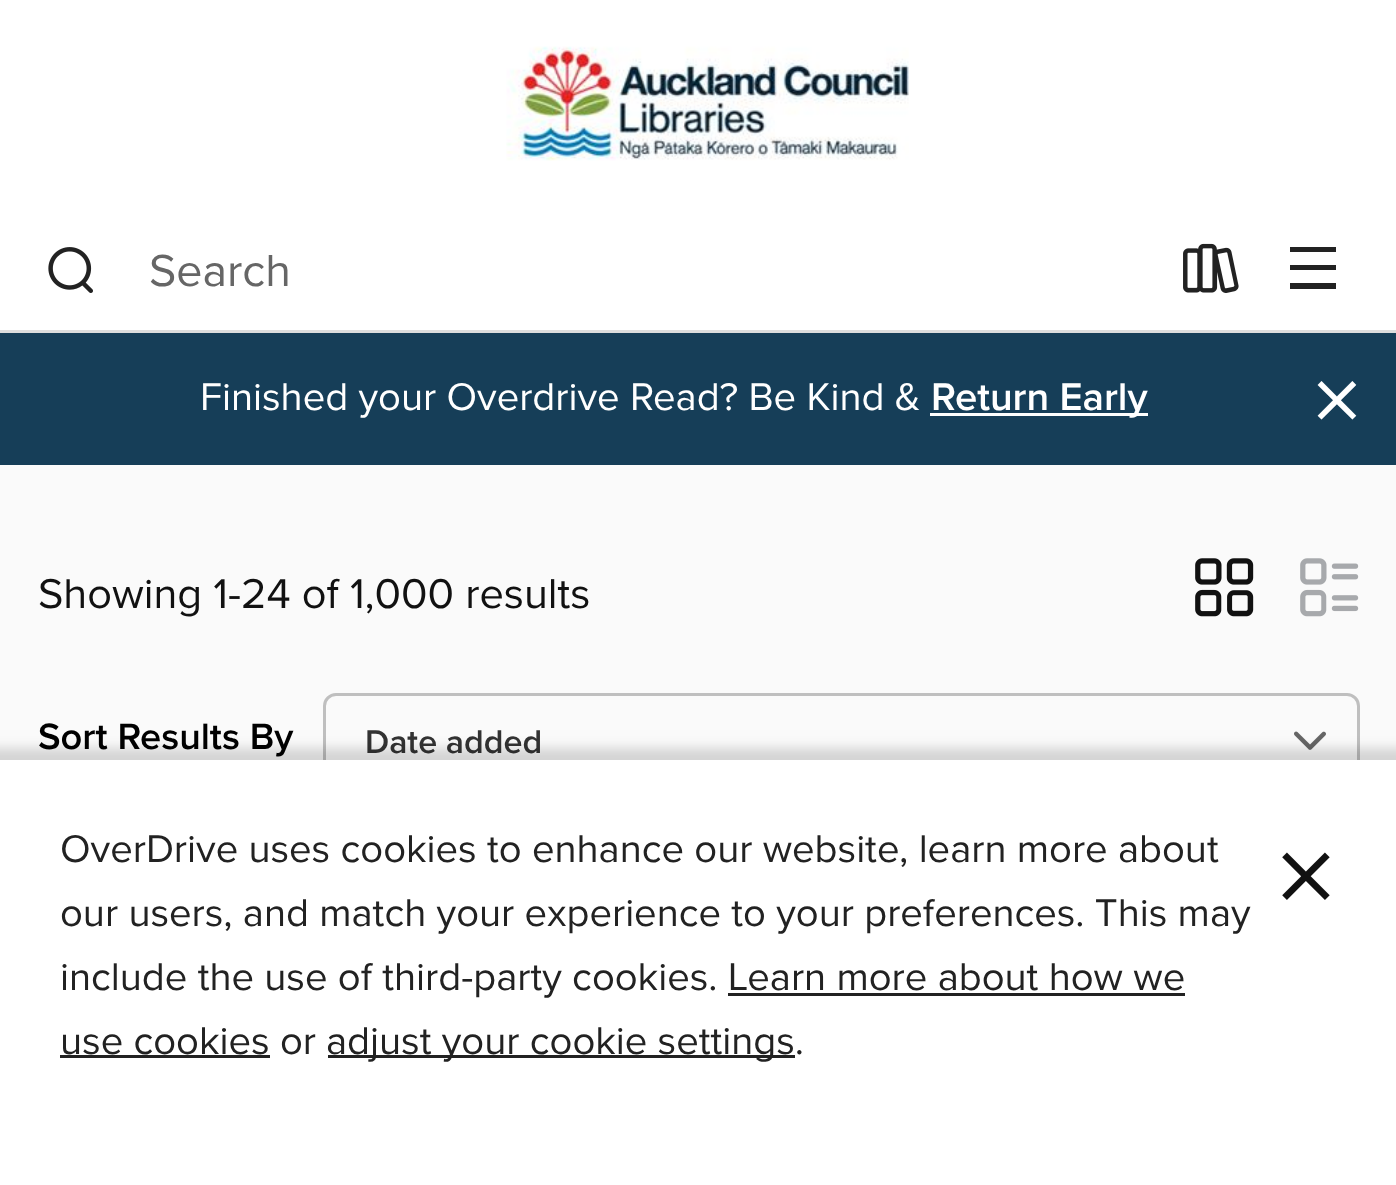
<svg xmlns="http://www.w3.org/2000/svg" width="1396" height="1185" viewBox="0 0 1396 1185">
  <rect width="100%" height="100%" fill="rgb(250,250,250)"/>
  <rect x="0" y="0" width="1396" height="330" fill="rgb(255,255,255)"/>
  <image x="506" y="46" width="403" height="115" href="pic1.png"/>
  <rect x="0" y="330" width="1396" height="3" fill="rgb(221,221,221)"/>
  <image x="48" y="247" width="45" height="46" href="pic2.png"/>
  <text x="149" y="286" font-family="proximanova" font-size="46.5" fill="rgb(102,102,102)">Search</text>
  <image x="1183" y="243" width="56" height="50" href="pic3.png"/>
  <path d="M1290 247V252H1336V247ZM1290 270H1336V265H1290ZM1290 289H1336V283H1290Z" fill="rgb(34,34,34)"/>
  <rect x="0" y="333" width="1396" height="132" fill="rgb(22,62,88)"/>
  <text x="200" y="410" font-family="proximanova" font-size="40" fill="rgb(255,255,255)">Finished your Overdrive Read? Be Kind &amp;</text>
  <rect x="930" y="413" width="218" height="3" fill="rgb(255,255,255)"/>
  <text x="931" y="410" font-family="Proxima Nova" font-size="40" font-weight="600" fill="rgb(255,255,255)">Return Early</text>
  <text x="1311" y="435" font-family="proximanova" font-size="104" fill="rgb(255,255,255)">×</text>
  <text x="38" y="608" font-family="proximanova" font-size="43.3" fill="rgb(17,17,17)">Showing 1-24 of 1,000 results</text>
  <image x="1195" y="558" width="59" height="59" href="pic4.png"/>
  <image x="1300" y="558" width="59" height="59" href="pic5.png"/>
  <text x="38" y="749" font-family="Proxima Nova" font-size="38" font-weight="600" fill="rgb(0,0,0)">Sort Results By</text>
  <rect x="324.5" y="694.5" width="1034" height="89" rx="11.5" fill="none" stroke="rgb(191,191,191)" stroke-width="3"/>
  <text x="365" y="753" font-family="Proxima Nova" font-size="34" font-weight="600" fill="rgb(51,51,51)">Date added</text>
  <image x="1294" y="731" width="32" height="19" href="pic6.png"/>
  <rect x="-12" y="748" width="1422" height="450" fill="rgba(0,0,0,0.15)" filter="blur(6px)"/>
  <rect x="0" y="760" width="1396" height="425" fill="rgb(255,255,255)"/>
  <g font-family="proximanova" font-size="40" fill="rgb(34,34,34)">
    <text>
      <tspan x="60" y="862">OverDrive uses cookies to enhance our website, learn more about</tspan>
      <tspan x="60" y="926">our users, and match your experience to your preferences. This may</tspan>
      <tspan x="60" y="990">include the use of third-party cookies. Learn more about how we</tspan>
    </text>
  </g>
  <rect x="728" y="993" width="457" height="3" fill="rgb(34,34,34)"/>
  <text x="60" y="1054" font-family="proximanova" font-size="40" fill="rgb(34,34,34)">use cookies or</text>
  <rect x="60" y="1055" width="210" height="3" fill="rgb(34,34,34)"/>
  <rect x="328" y="1055" width="467" height="3" fill="rgb(34,34,34)"/>
  <text x="326" y="1054" font-family="proximanova" font-size="40" fill="rgb(34,34,34)">adjust your cookie settings.</text>
  <text x="1274" y="919" font-family="proximanova" font-size="128" fill="rgb(17,17,17)">×</text>
</svg>
